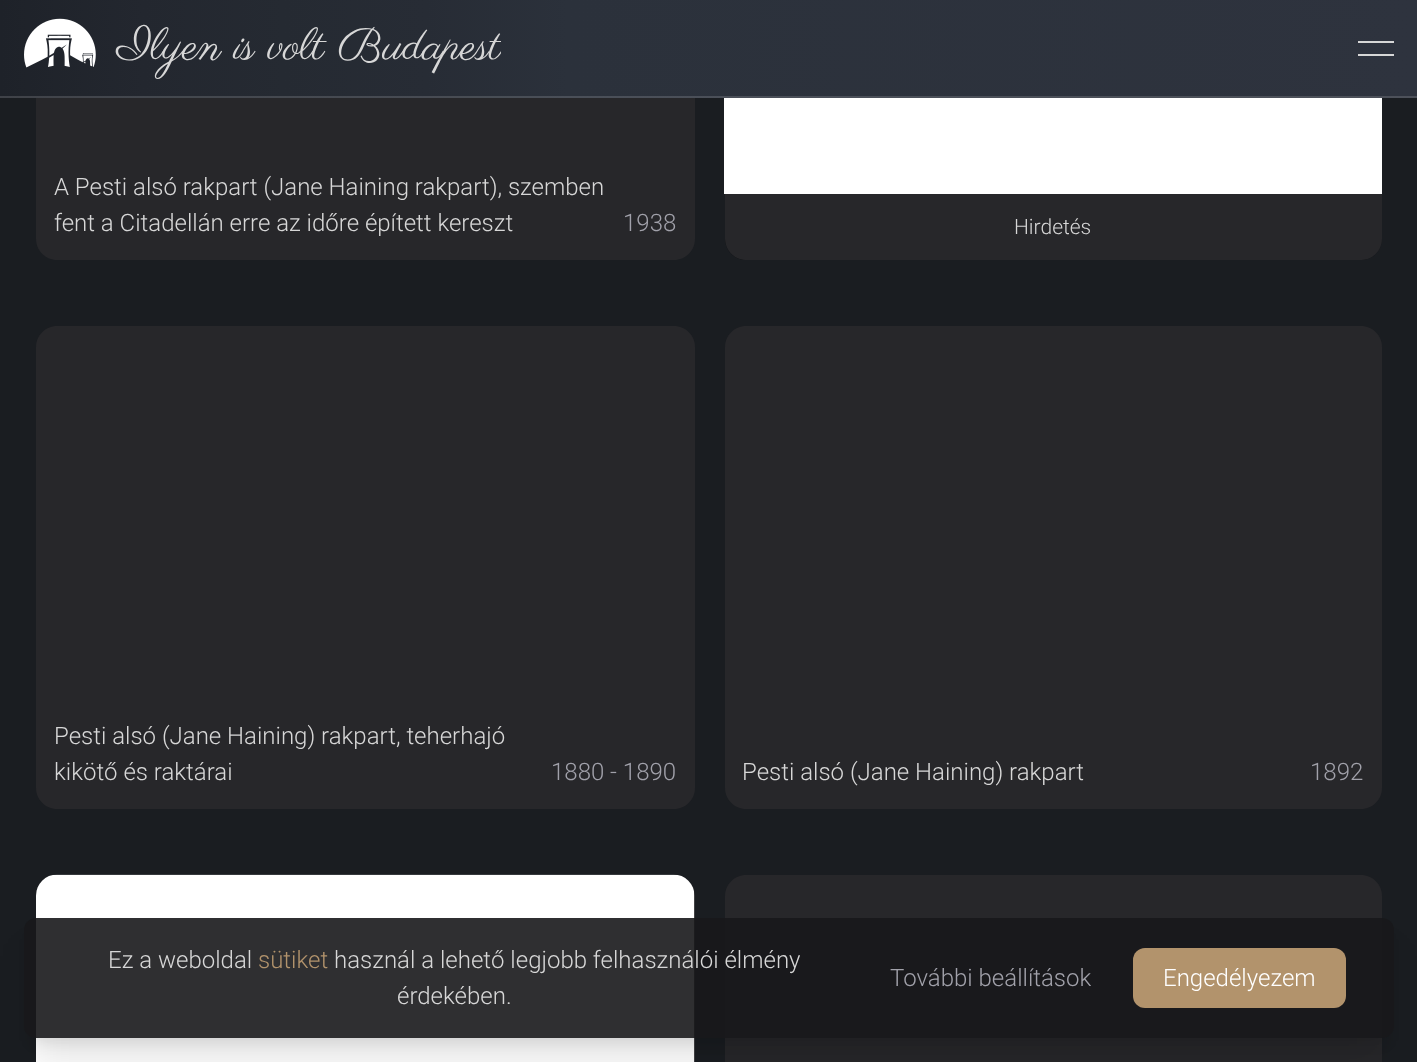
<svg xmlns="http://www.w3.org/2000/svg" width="1417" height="1062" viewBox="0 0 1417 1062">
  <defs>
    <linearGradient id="g1" gradientUnits="userSpaceOnUse" x1="0" y1="531" x2="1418" y2="531"><stop offset="0" stop-color="rgb(30,34,41)"/><stop offset="0.1" stop-color="rgb(35,39,47)"/><stop offset="0.2" stop-color="rgb(37,42,50)"/><stop offset="0.3" stop-color="rgb(39,44,53)"/><stop offset="0.4" stop-color="rgb(43,49,59)"/><stop offset="1" stop-color="rgb(46,51,62)"/></linearGradient>
    <clipPath id="clip1"><rect x="114" y="15" width="387" height="66"/></clipPath>
    <clipPath id="clip2"><rect x="725" y="-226" width="657" height="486" rx="21"/></clipPath>
    <clipPath id="clip3"><path d="M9 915H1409V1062H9ZM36 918H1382C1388.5 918 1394 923.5 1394 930V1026C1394 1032.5 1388.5 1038 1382 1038H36C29.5 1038 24 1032.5 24 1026V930C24 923.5 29.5 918 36 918Z" clip-rule="evenodd"/></clipPath>
    <clipPath id="clip4"><path d="M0 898H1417V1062H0ZM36 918H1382C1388.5 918 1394 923.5 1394 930V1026C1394 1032.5 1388.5 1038 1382 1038H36C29.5 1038 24 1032.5 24 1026V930C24 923.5 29.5 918 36 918Z" clip-rule="evenodd"/></clipPath>
  </defs>
  <rect width="100%" height="100%" fill="rgb(26,29,33)"/>
  <rect x="725" y="-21" width="657" height="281" rx="21" fill="rgb(24,24,27)"/>
  <rect x="0" y="0" width="1417" height="98" fill="url(#g1)"/>
  <rect x="0" y="96" width="1417" height="2" fill="rgba(255,255,255,0.15)"/>
  <image x="24" y="18" width="72" height="50" href="pic1.png"/>
  <g clip-path="url(#clip1)">
    <text x="117" y="59" font-family="Parisienne" font-size="45" fill="rgb(215,215,215)">Ilyen is volt Budapest</text>
  </g>
  <rect x="1358" y="41" width="36" height="2" fill="rgb(215,215,215)"/>
  <rect x="1358" y="54" width="36" height="2" fill="rgb(215,215,215)"/>
  <rect x="36" y="98" width="659" height="51" fill="rgb(39,39,42)"/>
  <path d="M36 149H695V239C695 250.5 685.5 260 674 260H57C45.5 260 36 250.5 36 239Z" fill="rgb(39,39,42)"/>
  <g font-family="Roboto" font-size="24" font-weight="300" fill="rgb(215,215,215)">
    <text>
      <tspan x="54" y="195">A Pesti alsó rakpart (Jane Haining rakpart), szemben</tspan>
      <tspan x="54" y="231">fent a Citadellán erre az időre épített kereszt</tspan>
    </text>
  </g>
  <text x="623" y="231" font-family="Roboto" font-size="24" font-weight="300" fill="rgb(161,161,170)">1938</text>
  <rect x="724" y="98" width="658" height="96" fill="rgb(255,255,255)"/>
  <g clip-path="url(#clip2)">
    <path d="M725 194H1383V239C1383 250.5 1373.5 260 1362 260H746C734.5 260 725 250.5 725 239Z" fill="rgb(39,39,42)"/>
  </g>
  <text x="1014" y="234" font-family="Roboto" font-size="21" font-weight="300" fill="rgb(215,215,215)">Hirdetés</text>
  <path d="M57 326H674C685.5 326 695 335.5 695 347V701H36V347C36 335.5 45.5 326 57 326Z" fill="rgb(39,39,42)"/>
  <path d="M36 701H695V788C695 799.5 685.5 809 674 809H57C45.5 809 36 799.5 36 788Z" fill="rgb(39,39,42)"/>
  <g font-family="Roboto" font-size="24" font-weight="300" fill="rgb(215,215,215)">
    <text>
      <tspan x="54" y="744">Pesti alsó (Jane Haining) rakpart, teherhajó</tspan>
      <tspan x="54" y="780">kikötő és raktárai</tspan>
    </text>
  </g>
  <text x="551" y="780" font-family="Roboto" font-size="24" font-weight="300" fill="rgb(161,161,170)">1880 - 1890</text>
  <path d="M746 326H1361C1372.5 326 1382 335.5 1382 347V701H725V347C725 335.5 734.5 326 746 326Z" fill="rgb(39,39,42)"/>
  <path d="M725 701H1382V788C1382 799.5 1372.5 809 1361 809H746C734.5 809 725 799.5 725 788Z" fill="rgb(39,39,42)"/>
  <text x="742" y="780" font-family="Roboto" font-size="24" font-weight="300" fill="rgb(215,215,215)">Pesti alsó (Jane Haining) rakpart</text>
  <text x="1310" y="780" font-family="Roboto" font-size="24" font-weight="300" fill="rgb(161,161,170)">1892</text>
  <path d="M57 875H674C685.5 875 695 884.5 695 896V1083H36V896C36 884.5 45.5 875 57 875Z" fill="rgb(39,39,42)"/>
  <image x="36" y="874" width="659" height="188" href="pic2.png"/>
  <path d="M746 875H1361C1372.5 875 1382 884.5 1382 896V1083H725V896C725 884.5 734.5 875 746 875Z" fill="rgb(39,39,42)"/>
  <g clip-path="url(#clip3)">
    <rect x="33" y="939" width="1352" height="102" rx="3" fill="rgba(0,0,0,0.1)" filter="blur(7.5px)"/>
  </g>
  <g clip-path="url(#clip4)">
    <rect x="32" y="956" width="1354" height="105" rx="5" fill="rgba(0,0,0,0.1)" filter="blur(19px)"/>
  </g>
  <rect x="24" y="918" width="1370" height="120" rx="12" fill="rgba(24,24,27,0.9)"/>
  <text x="108" y="968" font-family="Roboto" font-size="24" font-weight="300" fill="rgb(215,215,215)">Ez a weboldal</text>
  <text x="258" y="968" font-family="Roboto" font-size="24" font-weight="300" fill="rgb(178,147,108)">sütiket</text>
  <g font-family="Roboto" font-size="24" font-weight="300" fill="rgb(215,215,215)">
    <text x="334" y="968">használ a lehető legjobb felhasználói élmény</text>
    <text x="397" y="1004">érdekében.</text>
  </g>
  <text x="890" y="986" font-family="Roboto" font-size="24" font-weight="300" fill="rgb(161,161,170)">További beállítások</text>
  <rect x="1133" y="948" width="213" height="60" rx="12" fill="rgb(178,147,108)"/>
  <text x="1163" y="986" font-family="Roboto" font-size="24" font-weight="300" fill="rgb(255,255,255)">Engedélyezem</text>
</svg>
